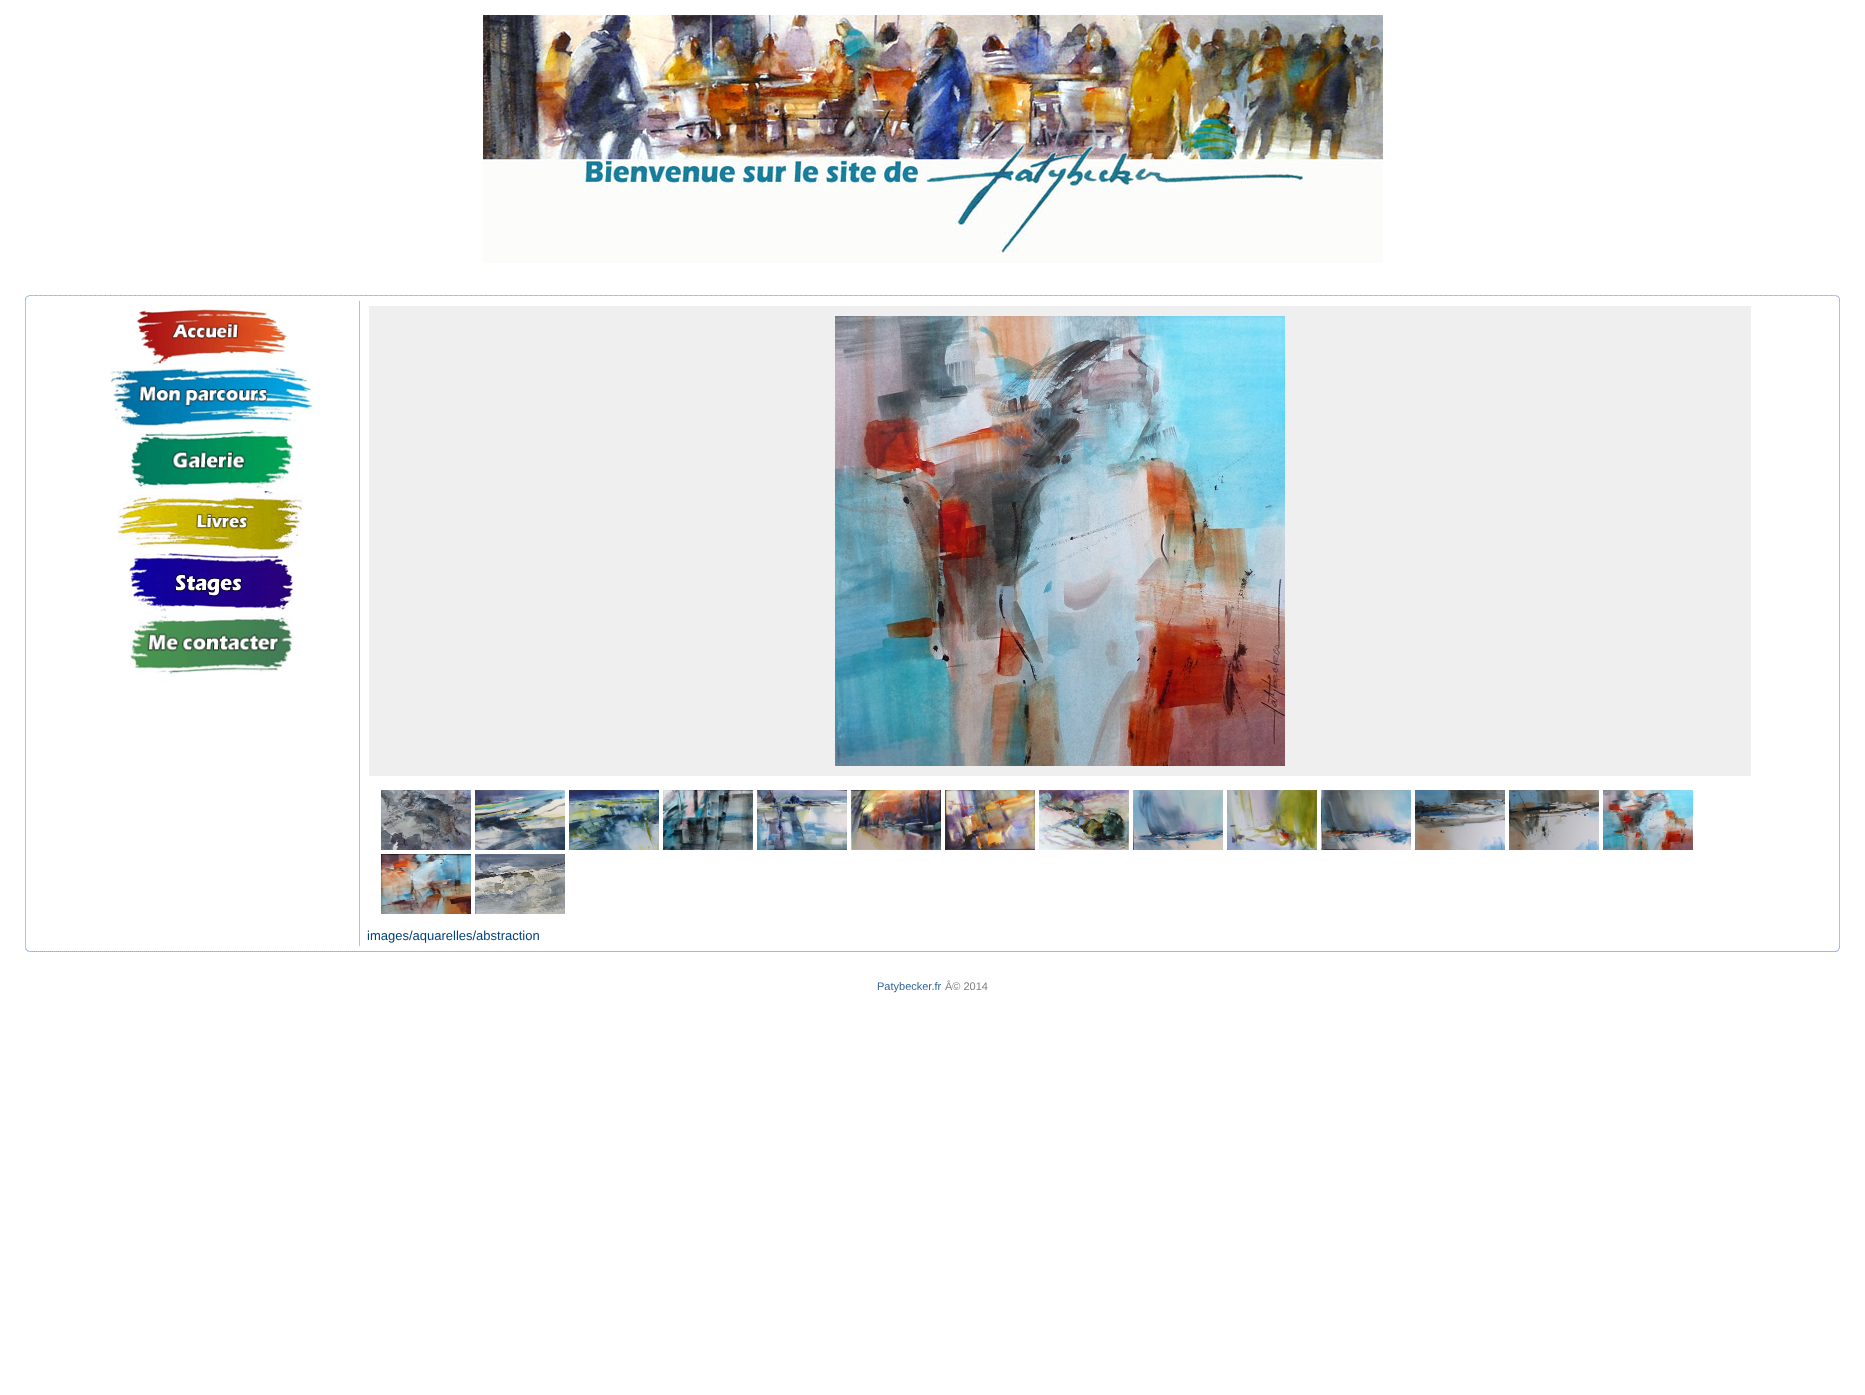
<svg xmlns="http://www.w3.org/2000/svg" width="1865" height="1395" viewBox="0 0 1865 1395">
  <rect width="100%" height="100%" fill="rgb(255,255,255)"/>
  <image x="483" y="15" width="900" height="248" href="pic1.png"/>
  <image x="25" y="295" width="334" height="6" href="pic2.png"/>
  <image x="359" y="295" width="1475" height="1" href="pic3.png"/>
  <image x="1834" y="295" width="6" height="6" href="pic4.png"/>
  <rect x="25" y="301" width="1" height="645" fill="rgb(162,200,219)"/>
  <image x="137" y="307" width="154" height="58" href="pic5.png"/>
  <image x="110" y="367" width="205" height="60" href="pic6.png"/>
  <image x="128" y="430" width="165" height="59" href="pic7.png"/>
  <image x="117" y="491" width="186" height="60" href="pic8.png"/>
  <image x="128" y="553" width="168" height="60" href="pic9.png"/>
  <image x="130" y="615" width="163" height="59" href="pic10.png"/>
  <rect x="359" y="301" width="1" height="645" fill="rgb(162,200,219)"/>
  <rect x="369" y="306" width="1382" height="470" fill="rgb(239,239,239)"/>
  <image x="835" y="316" width="450" height="450" href="pic11.png"/>
  <image x="381" y="790" width="90" height="60" href="pic12.png"/>
  <image x="475" y="790" width="90" height="60" href="pic13.png"/>
  <image x="569" y="790" width="90" height="60" href="pic14.png"/>
  <image x="663" y="790" width="90" height="60" href="pic15.png"/>
  <image x="757" y="790" width="90" height="60" href="pic16.png"/>
  <image x="851" y="790" width="90" height="60" href="pic17.png"/>
  <image x="945" y="790" width="90" height="60" href="pic18.png"/>
  <image x="1039" y="790" width="90" height="60" href="pic19.png"/>
  <image x="1133" y="790" width="90" height="60" href="pic20.png"/>
  <image x="1227" y="790" width="90" height="60" href="pic21.png"/>
  <image x="1321" y="790" width="90" height="60" href="pic22.png"/>
  <image x="1415" y="790" width="90" height="60" href="pic23.png"/>
  <image x="1509" y="790" width="90" height="60" href="pic24.png"/>
  <image x="1603" y="790" width="90" height="60" href="pic25.png"/>
  <image x="381" y="854" width="90" height="60" href="pic26.png"/>
  <image x="475" y="854" width="90" height="60" href="pic27.png"/>
  <text x="367" y="940" font-family="Liberation Sans" font-size="13" fill="rgb(0,64,128)">images/aquarelles/abstraction</text>
  <rect x="1839" y="301" width="1" height="645" fill="rgb(162,200,219)"/>
  <image x="25" y="946" width="334" height="6" href="pic28.png"/>
  <image x="359" y="951" width="1475" height="1" href="pic29.png"/>
  <image x="1834" y="946" width="6" height="6" href="pic30.png"/>
  <text x="877" y="990" font-family="Liberation Sans" font-size="11" fill="rgb(51,102,153)">Patybecker.fr</text>
  <text x="945" y="990" font-family="Liberation Sans" font-size="11" fill="rgb(128,128,128)">Â© 2014</text>
</svg>
